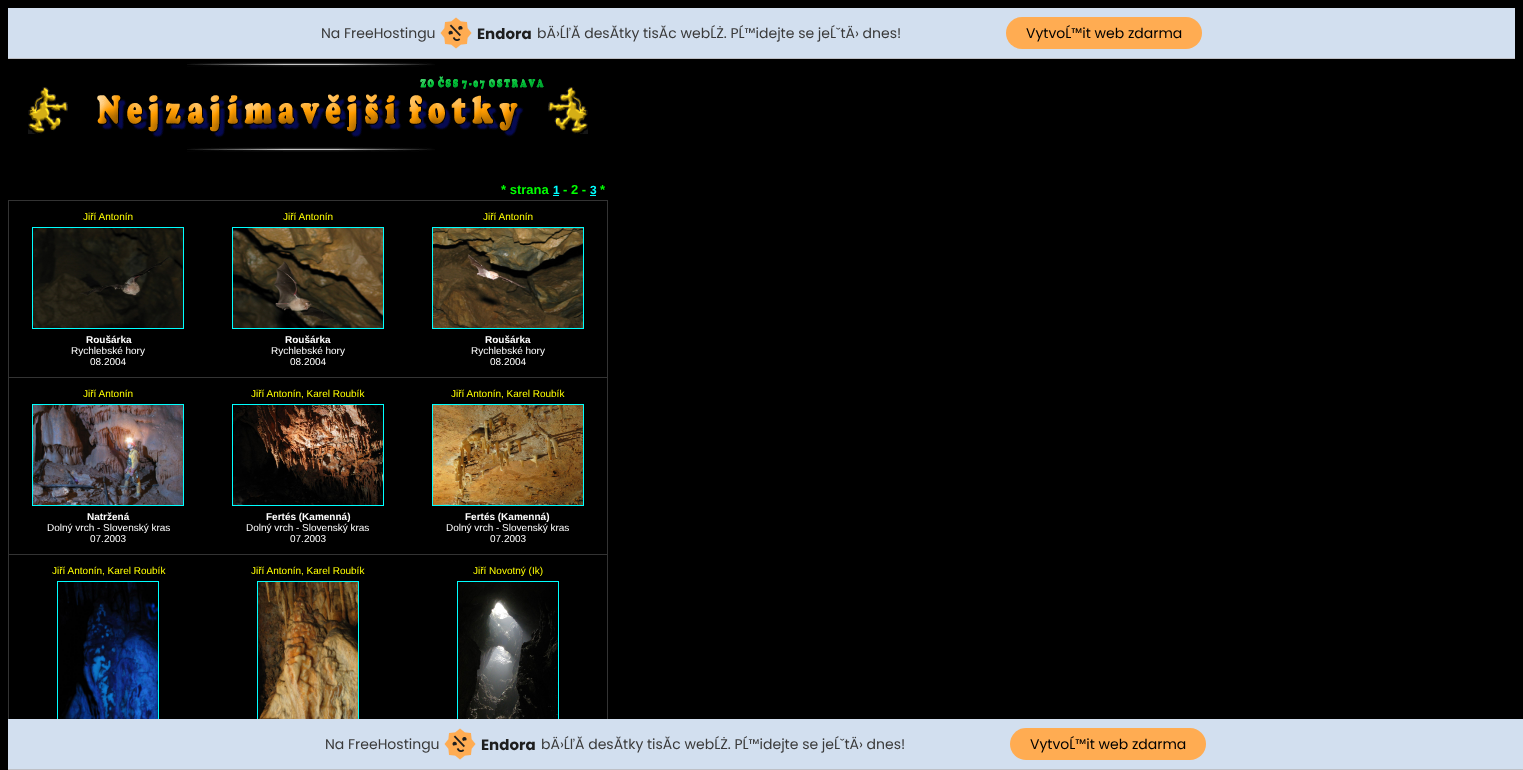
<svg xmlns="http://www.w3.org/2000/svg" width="1523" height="770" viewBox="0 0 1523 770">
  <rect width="100%" height="100%" fill="rgb(0,0,0)"/>
  <rect x="8" y="8" width="1507" height="50" fill="rgb(210,223,239)"/>
  <rect x="8" y="58" width="1507" height="1" fill="rgb(190,191,196)"/>
  <text x="321" y="38" font-family="Poppins" font-size="14" fill="rgb(58,58,58)">Na FreeHostingu</text>
  <image x="440" y="17" width="32" height="32" href="pic1.png"/>
  <text x="477" y="39" font-family="Poppins" font-size="15" font-weight="bold" fill="rgb(30,30,30)">Endora</text>
  <text x="537" y="38" font-family="Poppins" font-size="14" fill="rgb(58,58,58)">bÄ›ĹľĂ desĂtky tisĂc webĹŻ. PĹ™idejte se jeĹˇtÄ› dnes!</text>
  <rect x="1006" y="17" width="196" height="32" rx="16" fill="rgb(255,172,82)"/>
  <text x="1026" y="38" font-family="Poppins" font-size="14" fill="rgb(0,0,0)">VytvoĹ™it web zdarma</text>
  <image x="187" y="62" width="248" height="5" href="pic2.png"/>
  <image x="28" y="76" width="560" height="62" href="pic3.png"/>
  <image x="187" y="147" width="248" height="5" href="pic2.png"/>
  <text x="501" y="194" font-family="Liberation Sans" font-size="13" font-weight="bold" fill="rgb(0,255,0)">* strana</text>
  <text x="553" y="194" font-family="Liberation Sans" font-size="12" font-weight="bold" fill="rgb(0,255,255)">1</text>
  <rect x="553" y="195" width="6" height="1" fill="rgb(0,255,255)"/>
  <text x="563" y="194" font-family="Liberation Sans" font-size="13" font-weight="bold" fill="rgb(0,255,0)">- 2 -</text>
  <text x="590" y="194" font-family="Liberation Sans" font-size="12" font-weight="bold" fill="rgb(0,255,255)">3</text>
  <rect x="590" y="195" width="6" height="1" fill="rgb(0,255,255)"/>
  <text x="600" y="194" font-family="Liberation Sans" font-size="13" font-weight="bold" fill="rgb(0,255,0)">*</text>
  <rect x="8" y="200" width="600" height="519" fill="rgb(51,51,51)"/>
  <rect x="9" y="201" width="598" height="176" fill="rgb(0,0,0)"/>
  <text x="83" y="220" font-family="Liberation Sans" font-size="10" fill="rgb(255,255,0)">Jiří Antonín</text>
  <rect x="32.5" y="227.5" width="151" height="101" fill="none" stroke="rgb(0,255,255)"/>
  <image x="33" y="228" width="150" height="100" href="pic4.png"/>
  <text x="86" y="343" font-family="Liberation Sans" font-size="10" font-weight="bold" fill="rgb(255,255,255)">Roušárka</text>
  <g font-family="Liberation Sans" font-size="10" fill="rgb(255,255,255)">
    <text x="71" y="354">Rychlebské hory</text>
    <text x="90" y="365">08.2004</text>
  </g>
  <text x="283" y="220" font-family="Liberation Sans" font-size="10" fill="rgb(255,255,0)">Jiří Antonín</text>
  <rect x="232.5" y="227.5" width="151" height="101" fill="none" stroke="rgb(0,255,255)"/>
  <image x="233" y="228" width="150" height="100" href="pic5.png"/>
  <text x="285" y="343" font-family="Liberation Sans" font-size="10" font-weight="bold" fill="rgb(255,255,255)">Roušárka</text>
  <g font-family="Liberation Sans" font-size="10" fill="rgb(255,255,255)">
    <text x="271" y="354">Rychlebské hory</text>
    <text x="290" y="365">08.2004</text>
  </g>
  <text x="483" y="220" font-family="Liberation Sans" font-size="10" fill="rgb(255,255,0)">Jiří Antonín</text>
  <rect x="432.5" y="227.5" width="151" height="101" fill="none" stroke="rgb(0,255,255)"/>
  <image x="433" y="228" width="150" height="100" href="pic6.png"/>
  <text x="485" y="343" font-family="Liberation Sans" font-size="10" font-weight="bold" fill="rgb(255,255,255)">Roušárka</text>
  <g font-family="Liberation Sans" font-size="10" fill="rgb(255,255,255)">
    <text x="471" y="354">Rychlebské hory</text>
    <text x="490" y="365">08.2004</text>
  </g>
  <rect x="9" y="378" width="598" height="176" fill="rgb(0,0,0)"/>
  <text x="83" y="397" font-family="Liberation Sans" font-size="10" fill="rgb(255,255,0)">Jiří Antonín</text>
  <rect x="32.5" y="404.5" width="151" height="101" fill="none" stroke="rgb(0,255,255)"/>
  <image x="33" y="405" width="150" height="100" href="pic7.png"/>
  <text x="87" y="520" font-family="Liberation Sans" font-size="10" font-weight="bold" fill="rgb(255,255,255)">Natržená</text>
  <g font-family="Liberation Sans" font-size="10" fill="rgb(255,255,255)">
    <text x="47" y="531">Dolný vrch - Slovenský kras</text>
    <text x="90" y="542">07.2003</text>
  </g>
  <text x="251" y="397" font-family="Liberation Sans" font-size="10" fill="rgb(255,255,0)">Jiří Antonín, Karel Roubík</text>
  <rect x="232.5" y="404.5" width="151" height="101" fill="none" stroke="rgb(0,255,255)"/>
  <image x="233" y="405" width="150" height="100" href="pic8.png"/>
  <text x="266" y="520" font-family="Liberation Sans" font-size="10" font-weight="bold" fill="rgb(255,255,255)">Fertés (Kamenná)</text>
  <g font-family="Liberation Sans" font-size="10" fill="rgb(255,255,255)">
    <text x="246" y="531">Dolný vrch - Slovenský kras</text>
    <text x="290" y="542">07.2003</text>
  </g>
  <text x="451" y="397" font-family="Liberation Sans" font-size="10" fill="rgb(255,255,0)">Jiří Antonín, Karel Roubík</text>
  <rect x="432.5" y="404.5" width="151" height="101" fill="none" stroke="rgb(0,255,255)"/>
  <image x="433" y="405" width="150" height="100" href="pic9.png"/>
  <text x="465" y="520" font-family="Liberation Sans" font-size="10" font-weight="bold" fill="rgb(255,255,255)">Fertés (Kamenná)</text>
  <g font-family="Liberation Sans" font-size="10" fill="rgb(255,255,255)">
    <text x="446" y="531">Dolný vrch - Slovenský kras</text>
    <text x="490" y="542">07.2003</text>
  </g>
  <rect x="9" y="555" width="598" height="164" fill="rgb(0,0,0)"/>
  <text x="52" y="574" font-family="Liberation Sans" font-size="10" fill="rgb(255,255,0)">Jiří Antonín, Karel Roubík</text>
  <rect x="57.5" y="581.5" width="101" height="151" fill="none" stroke="rgb(0,255,255)"/>
  <image x="58" y="582" width="100" height="137" href="pic10.png"/>
  <text x="251" y="574" font-family="Liberation Sans" font-size="10" fill="rgb(255,255,0)">Jiří Antonín, Karel Roubík</text>
  <rect x="257.5" y="581.5" width="101" height="151" fill="none" stroke="rgb(0,255,255)"/>
  <image x="258" y="582" width="100" height="137" href="pic11.png"/>
  <text x="473" y="574" font-family="Liberation Sans" font-size="10" fill="rgb(255,255,0)">Jiří Novotný (Ik)</text>
  <rect x="457.5" y="581.5" width="101" height="151" fill="none" stroke="rgb(0,255,255)"/>
  <image x="458" y="582" width="100" height="137" href="pic12.png"/>
  <rect x="8" y="719" width="1515" height="50" fill="rgb(210,223,239)"/>
  <rect x="8" y="769" width="1515" height="1" fill="rgb(190,191,196)"/>
  <text x="325" y="749" font-family="Poppins" font-size="14" fill="rgb(58,58,58)">Na FreeHostingu</text>
  <image x="444" y="728" width="32" height="32" href="pic1.png"/>
  <text x="481" y="750" font-family="Poppins" font-size="15" font-weight="bold" fill="rgb(30,30,30)">Endora</text>
  <text x="541" y="749" font-family="Poppins" font-size="14" fill="rgb(58,58,58)">bÄ›ĹľĂ desĂtky tisĂc webĹŻ. PĹ™idejte se jeĹˇtÄ› dnes!</text>
  <rect x="1010" y="728" width="196" height="32" rx="16" fill="rgb(255,172,82)"/>
  <text x="1030" y="749" font-family="Poppins" font-size="14" fill="rgb(0,0,0)">VytvoĹ™it web zdarma</text>
</svg>
